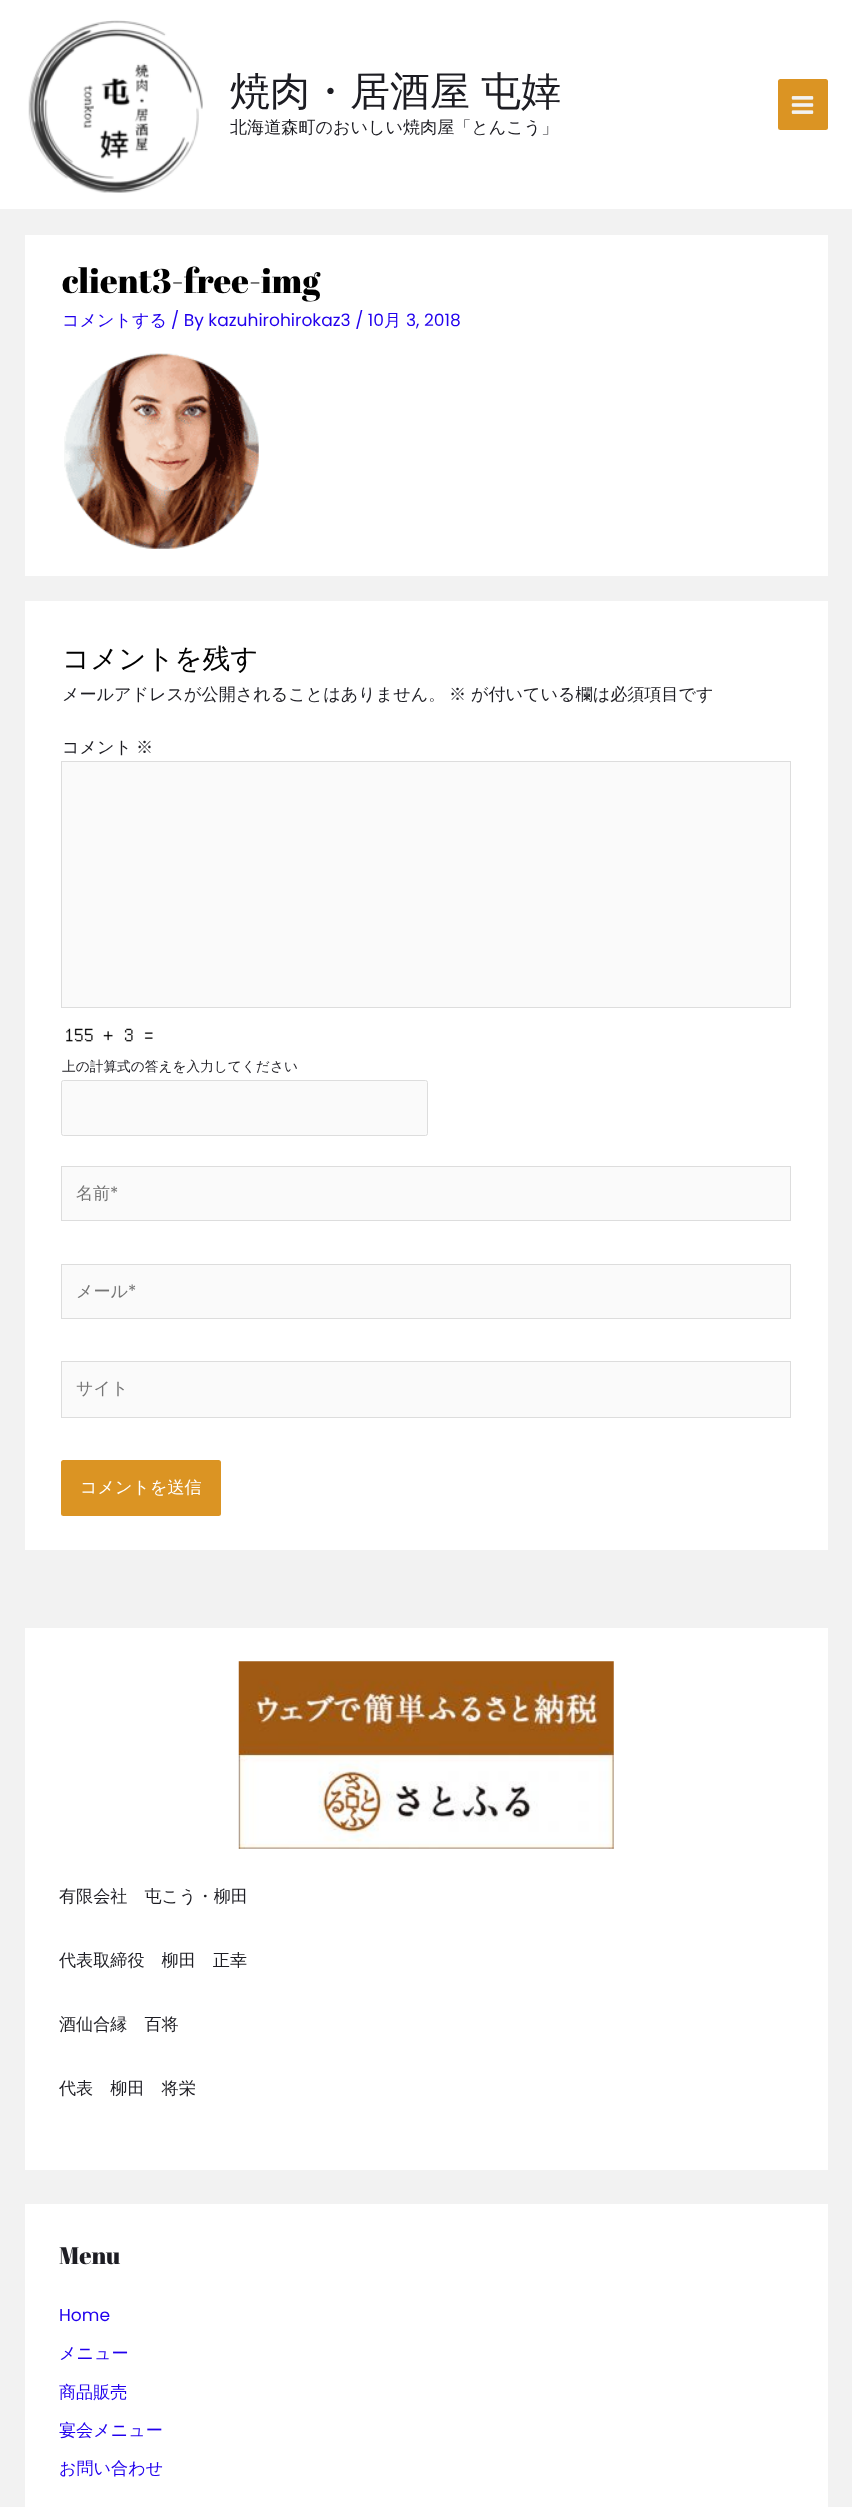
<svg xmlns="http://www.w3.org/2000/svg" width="852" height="2507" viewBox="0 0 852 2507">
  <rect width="100%" height="100%" fill="rgb(242,242,242)"/>
  <rect x="0" y="0" width="852" height="209" fill="rgb(255,255,255)"/>
  <image x="28" y="20" width="175" height="173" href="pic1.png"/>
  <text x="230" y="105" word-spacing="-1" font-family="WenQuanYi Zen Hei" font-size="40" font-weight="500" fill="rgb(29,29,35)">焼肉・居酒屋 屯婞</text>
  <text x="230" y="133" font-family="WenQuanYi Zen Hei" font-size="17.1" font-weight="500" fill="rgb(29,29,35)">北海道森町のおいしい焼肉屋「とんこう」</text>
  <rect x="778" y="79" width="50" height="51" rx="2.5" fill="rgb(219,148,35)"/>
  <image x="791" y="96" width="23" height="18" href="pic2.png"/>
  <rect x="25" y="235" width="803" height="341" fill="rgb(255,255,255)"/>
  <text x="62" y="293" font-family="Abril Fatface" font-size="34.25" fill="rgb(0,0,0)">client3-free-img</text>
  <text x="62" y="326" font-family="WenQuanYi Zen Hei" font-size="17.1" font-weight="500" fill="rgb(33,0,237)">コメントする</text>
  <text x="171" y="326" font-family="Poppins" font-size="17.1" fill="rgb(33,0,237)">/ By kazuhirohirokaz3 / 10</text>
  <text x="384" y="326" font-family="WenQuanYi Zen Hei" font-size="17.1" font-weight="500" fill="rgb(33,0,237)">月</text>
  <text x="406" y="326" font-family="Poppins" font-size="17.1" fill="rgb(33,0,237)">3, 2018</text>
  <image x="64" y="353" width="195" height="196" href="pic3.png"/>
  <rect x="25" y="601" width="803" height="949" fill="rgb(255,255,255)"/>
  <text x="62" y="668" font-family="WenQuanYi Zen Hei" font-size="27.5" font-weight="500" fill="rgb(0,0,0)">コメントを残す</text>
  <g font-family="WenQuanYi Zen Hei" font-size="17.1" font-weight="500" fill="rgb(29,29,35)">
    <text x="62" y="700">メールアドレスが公開されることはありません。</text>
    <text x="449" y="700">※</text>
    <text x="471" y="700">が付いている欄は必須項目です</text>
    <text x="62" y="753">コメント</text>
    <text x="136" y="753">※</text>
  </g>
  <rect x="61.5" y="761.5" width="729" height="246" fill="rgb(250,250,250)" stroke="rgb(221,221,221)"/>
  <image x="66" y="1028" width="87" height="14" href="pic4.png"/>
  <text x="62" y="1071" font-family="WenQuanYi Zen Hei" font-size="13.7" font-weight="500" fill="rgb(29,29,35)">上の計算式の答えを入力してください</text>
  <rect x="61.5" y="1080.5" width="366" height="55" rx="2" fill="rgb(250,250,250)" stroke="rgb(221,221,221)"/>
  <rect x="61.5" y="1166.5" width="729" height="54" fill="rgb(250,250,250)" stroke="rgb(221,221,221)"/>
  <text x="76" y="1199" font-family="WenQuanYi Zen Hei" font-size="17.1" font-weight="500" fill="rgb(117,117,117)">名前</text>
  <text x="110" y="1199" font-family="Poppins" font-size="17.1" fill="rgb(117,117,117)">*</text>
  <rect x="61.5" y="1264.5" width="729" height="54" fill="rgb(250,250,250)" stroke="rgb(221,221,221)"/>
  <text x="76" y="1297" font-family="WenQuanYi Zen Hei" font-size="17.1" font-weight="500" fill="rgb(117,117,117)">メール</text>
  <text x="128" y="1297" font-family="Poppins" font-size="17.1" fill="rgb(117,117,117)">*</text>
  <rect x="61.5" y="1361.5" width="729" height="56" fill="rgb(250,250,250)" stroke="rgb(221,221,221)"/>
  <text x="76" y="1394" font-family="WenQuanYi Zen Hei" font-size="17.1" font-weight="500" fill="rgb(117,117,117)">サイト</text>
  <rect x="61" y="1460" width="160" height="56" rx="2.5" fill="rgb(219,148,35)"/>
  <text x="80" y="1493" font-family="WenQuanYi Zen Hei" font-size="17.1" font-weight="500" fill="rgb(255,255,255)">コメントを送信</text>
  <rect x="25" y="1628" width="803" height="542" fill="rgb(255,255,255)"/>
  <image x="238" y="1661" width="376" height="188" href="pic5.png"/>
  <g font-family="WenQuanYi Zen Hei" font-size="17.1" font-weight="500" fill="rgb(29,29,35)">
    <text x="59" y="1902">有限会社　屯こう・柳田</text>
    <text x="59" y="1966">代表取締役　柳田　正幸</text>
    <text x="59" y="2030">酒仙合縁　百将</text>
    <text x="59" y="2094">代表　柳田　将栄</text>
  </g>
  <rect x="25" y="2204" width="803" height="303" fill="rgb(255,255,255)"/>
  <text x="59" y="2264" font-family="Abril Fatface" font-size="24" fill="rgb(29,29,35)">Menu</text>
  <text x="59" y="2321" font-family="Poppins" font-size="17.1" fill="rgb(33,0,237)">Home</text>
  <g font-family="WenQuanYi Zen Hei" font-size="17.1" font-weight="500" fill="rgb(33,0,237)">
    <text x="59" y="2359">メニュー</text>
    <text x="59" y="2398">商品販売</text>
    <text x="59" y="2436">宴会メニュー</text>
    <text x="59" y="2474">お問い合わせ</text>
  </g>
</svg>
